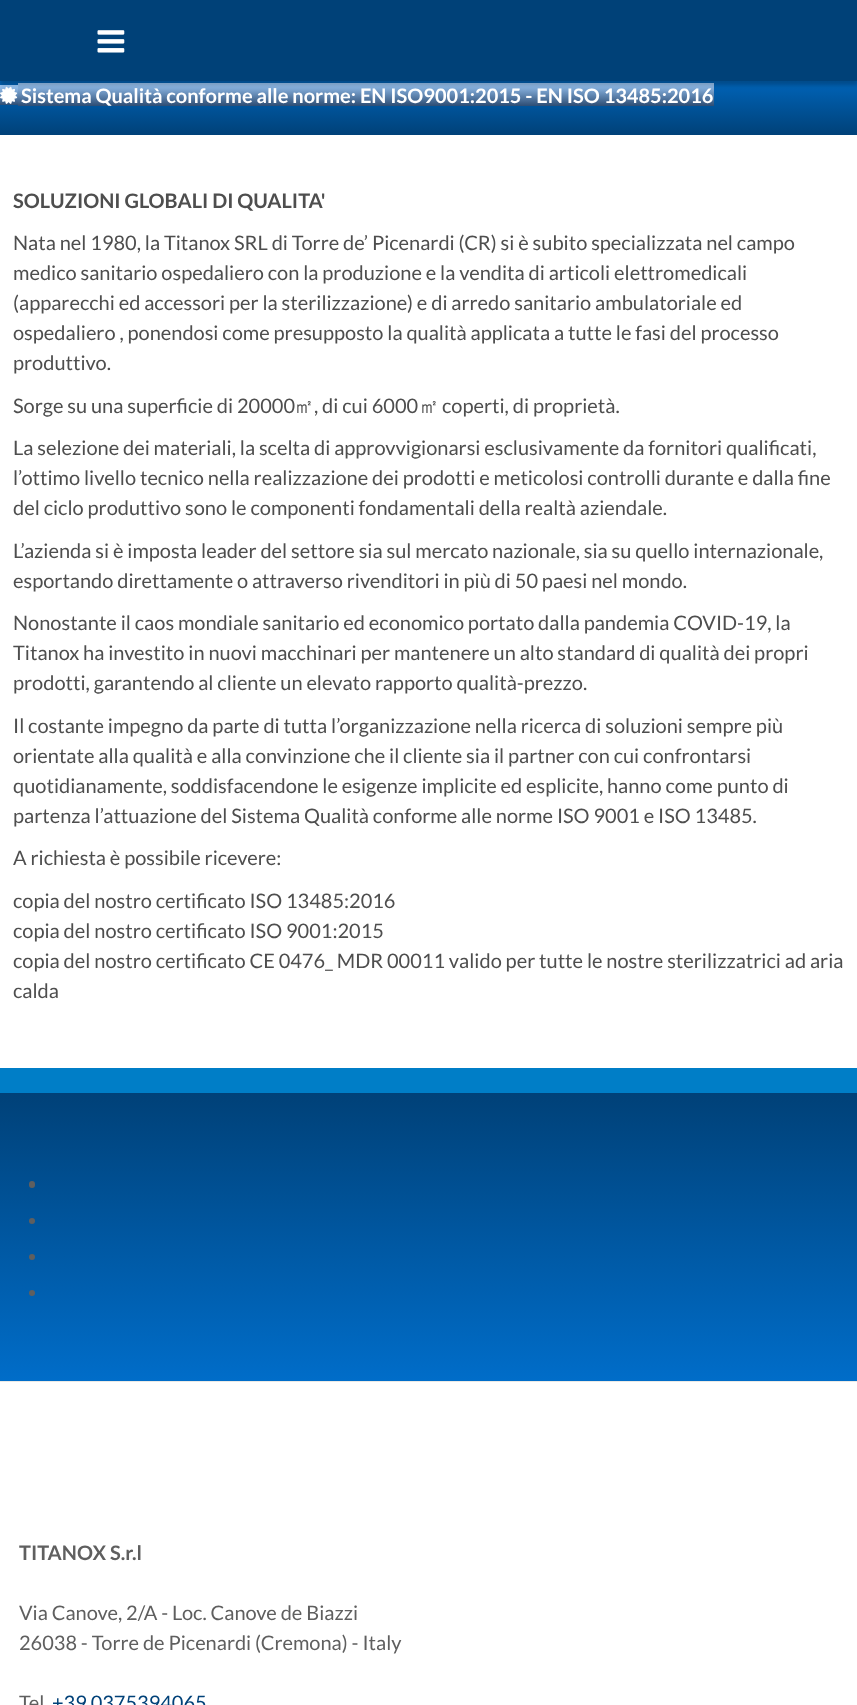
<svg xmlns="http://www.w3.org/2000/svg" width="857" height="1705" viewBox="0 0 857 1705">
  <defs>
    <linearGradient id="g1" gradientUnits="userSpaceOnUse" x1="429" y1="67" x2="429" y2="135"><stop offset="0" stop-color="rgb(0,109,201)"/><stop offset="1" stop-color="rgb(0,65,120)"/></linearGradient>
    <linearGradient id="g2" gradientUnits="userSpaceOnUse" x1="9" y1="85" x2="9" y2="105"><stop offset="0" stop-color="rgb(160,205,252)"/><stop offset="1" stop-color="rgb(45,77,116)"/></linearGradient>
    <linearGradient id="g3" gradientUnits="userSpaceOnUse" x1="366" y1="82" x2="366" y2="106"><stop offset="0" stop-color="rgb(160,205,252)"/><stop offset="1" stop-color="rgb(45,77,116)"/></linearGradient>
    <linearGradient id="g4" gradientUnits="userSpaceOnUse" x1="429" y1="1381" x2="429" y2="1093"><stop offset="0" stop-color="rgb(0,109,201)"/><stop offset="1" stop-color="rgb(0,65,120)"/></linearGradient>
  </defs>
  <rect width="100%" height="100%" fill="rgb(255,255,255)"/>
  <rect x="0" y="81" width="857" height="54" fill="url(#g1)"/>
  <rect x="0" y="85" width="18" height="20" fill="url(#g2)"/>
  <rect x="18" y="83" width="696" height="23" fill="url(#g3)"/>
  <image x="0" y="86" width="18" height="18" href="pic2.png"/>
  <rect x="0" y="4" width="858" height="81" fill="rgba(0,0,0,0.25)" filter="blur(2px)"/>
  <rect x="0" y="0" width="857" height="81" fill="rgb(0,65,120)"/>
  <image x="97" y="30" width="28" height="23" href="pic1.png"/>
  <text x="21" y="103" font-family="Lato" font-size="20" font-weight="bold" fill="rgb(255,255,255)">Sistema Qualità conforme alle norme: EN ISO9001:2015 - EN ISO 13485:2016</text>
  <text x="13" y="208" font-family="Lato" font-size="20" font-weight="bold" fill="rgb(78,78,78)">SOLUZIONI GLOBALI DI QUALITA'</text>
  <g font-family="Lato" font-size="20" fill="rgb(78,78,78)">
    <text>
      <tspan x="13" y="250">Nata nel 1980, la Titanox SRL di Torre de’ Picenardi (CR) si è subito specializzata nel campo</tspan>
      <tspan x="13" y="280">medico sanitario ospedaliero con la produzione e la vendita di articoli elettromedicali</tspan>
      <tspan x="13" y="310">(apparecchi ed accessori per la sterilizzazione) e di arredo sanitario ambulatoriale ed</tspan>
      <tspan x="13" y="340">ospedaliero , ponendosi come presupposto la qualità applicata a tutte le fasi del processo</tspan>
      <tspan x="13" y="370">produttivo.</tspan>
    </text>
    <text x="13" y="413">Sorge su una superficie di 20000</text>
  </g>
  <text x="294" y="413" font-family="WenQuanYi Zen Hei" font-size="20" font-weight="500" fill="rgb(78,78,78)">㎡</text>
  <text x="314" y="413" font-family="Lato" font-size="20" fill="rgb(78,78,78)">, di cui 6000</text>
  <text x="419" y="413" font-family="WenQuanYi Zen Hei" font-size="20" font-weight="500" fill="rgb(78,78,78)">㎡</text>
  <g font-family="Lato" font-size="20" fill="rgb(78,78,78)">
    <text x="442" y="413">coperti, di proprietà.</text>
    <text>
      <tspan x="13" y="455">La selezione dei materiali, la scelta di approvvigionarsi esclusivamente da fornitori qualificati,</tspan>
      <tspan x="13" y="485">l’ottimo livello tecnico nella realizzazione dei prodotti e meticolosi controlli durante e dalla fine</tspan>
      <tspan x="13" y="515">del ciclo produttivo sono le componenti fondamentali della realtà aziendale.</tspan>
    </text>
    <text>
      <tspan x="13" y="558">L’azienda si è imposta leader del settore sia sul mercato nazionale, sia su quello internazionale,</tspan>
      <tspan x="13" y="588">esportando direttamente o attraverso rivenditori in più di 50 paesi nel mondo.</tspan>
    </text>
    <text>
      <tspan x="13" y="630">Nonostante il caos mondiale sanitario ed economico portato dalla pandemia COVID-19, la</tspan>
      <tspan x="13" y="660">Titanox ha investito in nuovi macchinari per mantenere un alto standard di qualità dei propri</tspan>
      <tspan x="13" y="690">prodotti, garantendo al cliente un elevato rapporto qualità-prezzo.</tspan>
    </text>
    <text>
      <tspan x="13" y="733">Il costante impegno da parte di tutta l’organizzazione nella ricerca di soluzioni sempre più</tspan>
      <tspan x="13" y="763">orientate alla qualità e alla convinzione che il cliente sia il partner con cui confrontarsi</tspan>
      <tspan x="13" y="793">quotidianamente, soddisfacendone le esigenze implicite ed esplicite, hanno come punto di</tspan>
      <tspan x="13" y="823">partenza l’attuazione del Sistema Qualità conforme alle norme ISO 9001 e ISO 13485.</tspan>
    </text>
    <text x="13" y="865">A richiesta è possibile ricevere:</text>
    <text>
      <tspan x="13" y="908">copia del nostro certificato ISO 13485:2016</tspan>
      <tspan x="13" y="938">copia del nostro certificato ISO 9001:2015</tspan>
      <tspan x="13" y="968">copia del nostro certificato CE 0476_ MDR 00011 valido per tutte le nostre sterilizzatrici ad aria</tspan>
      <tspan x="13" y="998">calda</tspan>
    </text>
  </g>
  <rect x="0" y="1068" width="857" height="25" fill="rgb(0,126,199)"/>
  <rect x="0" y="1093" width="857" height="288" fill="url(#g4)"/>
  <rect x="29" y="1181" width="6" height="7" rx="3" fill="rgb(95,95,95)"/>
  <circle cx="32" cy="1221" r="3" fill="rgb(95,95,95)"/>
  <circle cx="32" cy="1257" r="3" fill="rgb(95,95,95)"/>
  <circle cx="32" cy="1293" r="3" fill="rgb(95,95,95)"/>
  <rect x="0" y="1381" width="857" height="1" fill="rgb(235,234,230)"/>
  <text x="19" y="1560" font-family="Lato" font-size="20" font-weight="bold" fill="rgb(95,95,95)">TITANOX S.r.l</text>
  <g font-family="Lato" font-size="20" fill="rgb(95,95,95)">
    <text>
      <tspan x="19" y="1620">Via Canove, 2/A - Loc. Canove de Biazzi</tspan>
      <tspan x="19" y="1650">26038 - Torre de Picenardi (Cremona) - Italy</tspan>
    </text>
    <text x="19" y="1710">Tel</text>
  </g>
  <text x="52" y="1710" font-family="Lato" font-size="20" fill="rgb(0,65,120)">+39 0375394065</text>
</svg>
